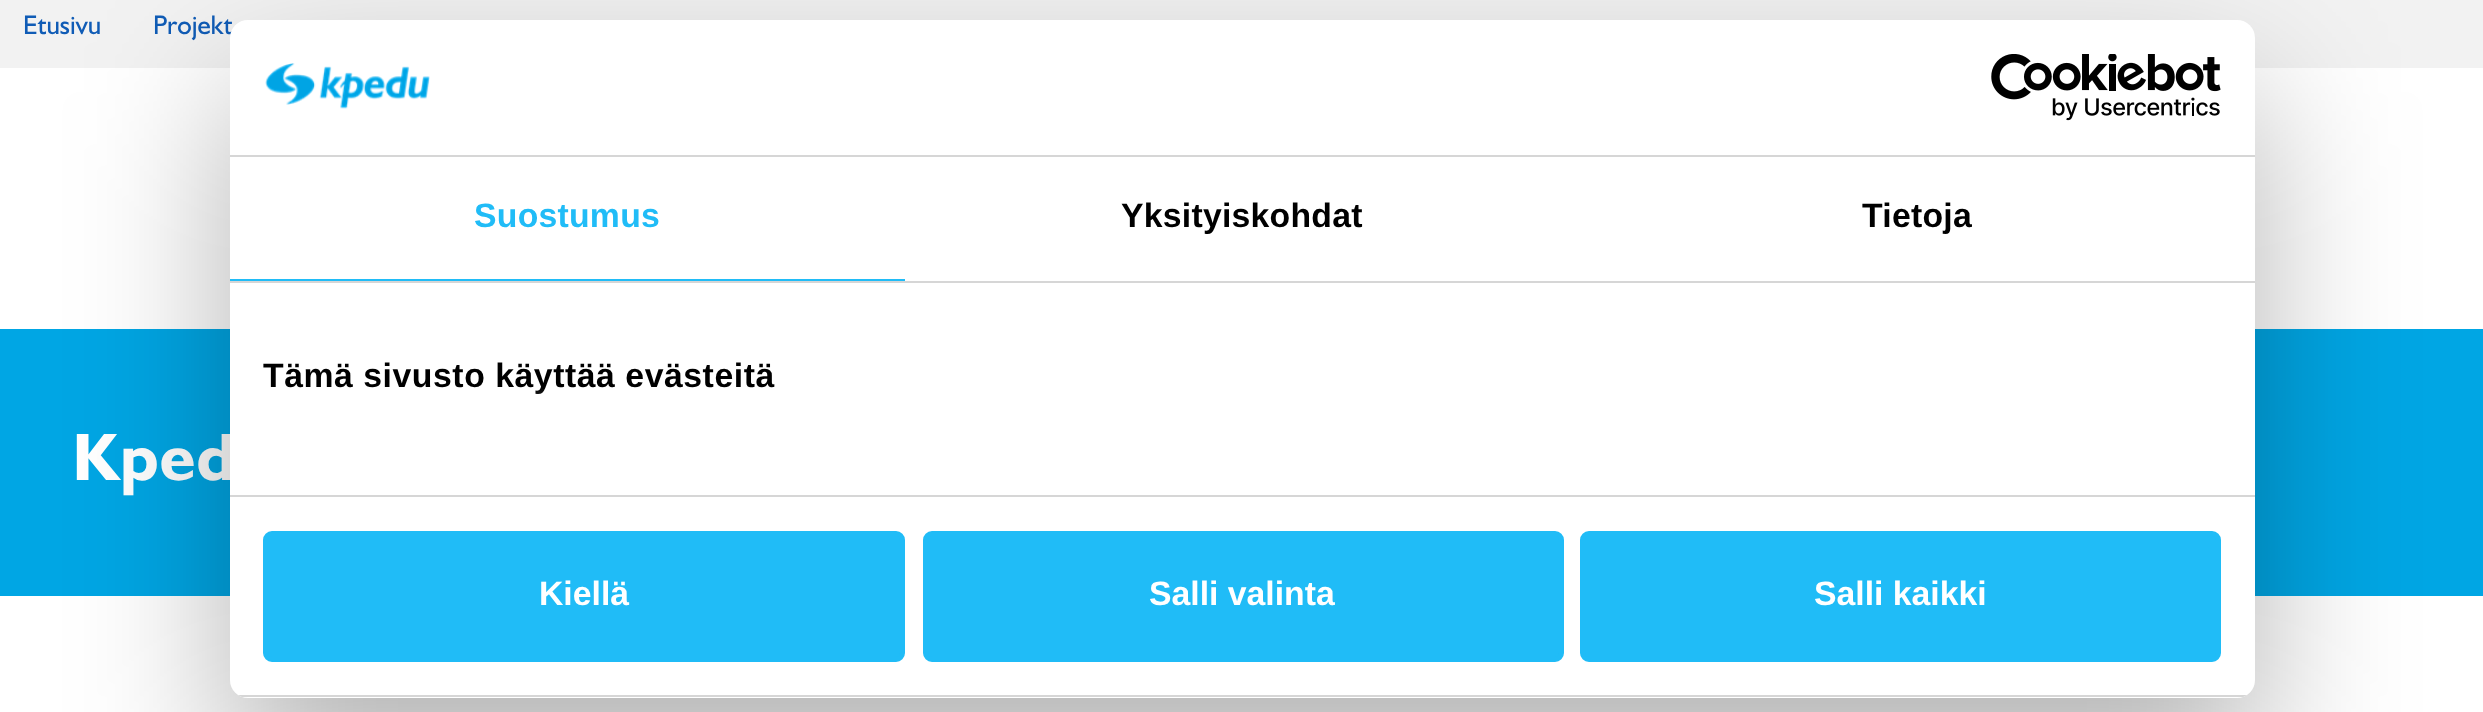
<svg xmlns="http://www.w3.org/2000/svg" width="2483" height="712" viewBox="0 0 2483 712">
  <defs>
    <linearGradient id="g1" gradientUnits="userSpaceOnUse" x1="1227" y1="494" x2="1227" y2="388"><stop offset="0" stop-color="rgb(255,255,255)"/><stop offset="0.5" stop-color="rgb(255,255,255)" stop-opacity="0.8"/><stop offset="1" stop-color="rgb(255,255,255)" stop-opacity="0"/></linearGradient>
    <clipPath id="clip1"><rect x="230" y="20" width="2025" height="678" rx="18"/></clipPath>
  </defs>
  <rect width="100%" height="100%" fill="rgb(242,242,242)"/>
  <g font-family="'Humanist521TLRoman'" font-size="27" fill="rgb(16,92,182)">
    <text x="23" y="34">Etusivu</text>
    <text x="153" y="34">Projekt</text>
  </g>
  <rect x="0" y="329" width="2483" height="267" fill="rgb(0,166,228)"/>
  <rect x="0" y="68" width="2483" height="261" fill="rgb(255,255,255)"/>
  <text x="72" y="480" font-family="'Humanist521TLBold'" font-size="67.5" font-weight="bold" letter-spacing="1" fill="rgb(255,255,255)">Kped</text>
  <rect x="0" y="596" width="2483" height="116" fill="rgb(255,255,255)"/>
  <rect x="230" y="92" width="2025" height="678" rx="18" fill="rgba(0,0,0,0.3)" filter="blur(76.5px)"/>
  <rect x="230" y="20" width="2025" height="678" rx="18" fill="rgb(255,255,255)"/>
  <rect x="230" y="155" width="2025" height="2" fill="rgb(214,214,214)"/>
  <image x="265" y="63" width="165" height="46" href="pic1.png"/>
  <image x="1991" y="54" width="230" height="67" href="pic2.png"/>
  <rect x="230" y="281" width="2025" height="2" fill="rgb(214,214,214)"/>
  <rect x="230" y="279" width="675" height="2" fill="rgb(32,188,247)"/>
  <text x="474" y="227" font-family="Liberation Sans" font-size="33.75" font-weight="bold" letter-spacing="0.25" fill="rgb(32,188,247)">Suostumus</text>
  <g font-family="Liberation Sans" font-size="33.75" font-weight="bold" letter-spacing="0.25" fill="rgb(0,0,0)">
    <text x="1121" y="227">Yksityiskohdat</text>
    <text x="1862" y="227">Tietoja</text>
  </g>
  <rect x="230" y="495" width="2025" height="2" fill="rgb(214,214,214)"/>
  <text x="263" y="387" font-family="Liberation Sans" font-size="33.75" font-weight="bold" letter-spacing="0.55" fill="rgb(0,0,0)">Tämä sivusto käyttää evästeitä</text>
  <rect x="536" y="389" width="9" height="5" fill="url(#g1)"/>
  <g clip-path="url(#clip1)">
    <rect x="230" y="695" width="2025" height="2" fill="rgb(214,214,214)"/>
  </g>
  <rect x="265.5" y="533.5" width="637" height="126" rx="6.5" fill="rgb(32,188,247)" stroke="rgb(32,188,247)" stroke-width="5"/>
  <text x="539" y="605" font-family="Liberation Sans" font-size="33.75" font-weight="bold" fill="rgb(255,255,255)">Kiellä</text>
  <rect x="925.5" y="533.5" width="636" height="126" rx="6.5" fill="rgb(32,188,247)" stroke="rgb(32,188,247)" stroke-width="5"/>
  <text x="1149" y="605" font-family="Liberation Sans" font-size="33.75" font-weight="bold" fill="rgb(255,255,255)">Salli valinta</text>
  <rect x="1582.5" y="533.5" width="636" height="126" rx="6.5" fill="rgb(32,188,247)" stroke="rgb(32,188,247)" stroke-width="5"/>
  <text x="1814" y="605" font-family="Liberation Sans" font-size="33.75" font-weight="bold" fill="rgb(255,255,255)">Salli kaikki</text>
</svg>
